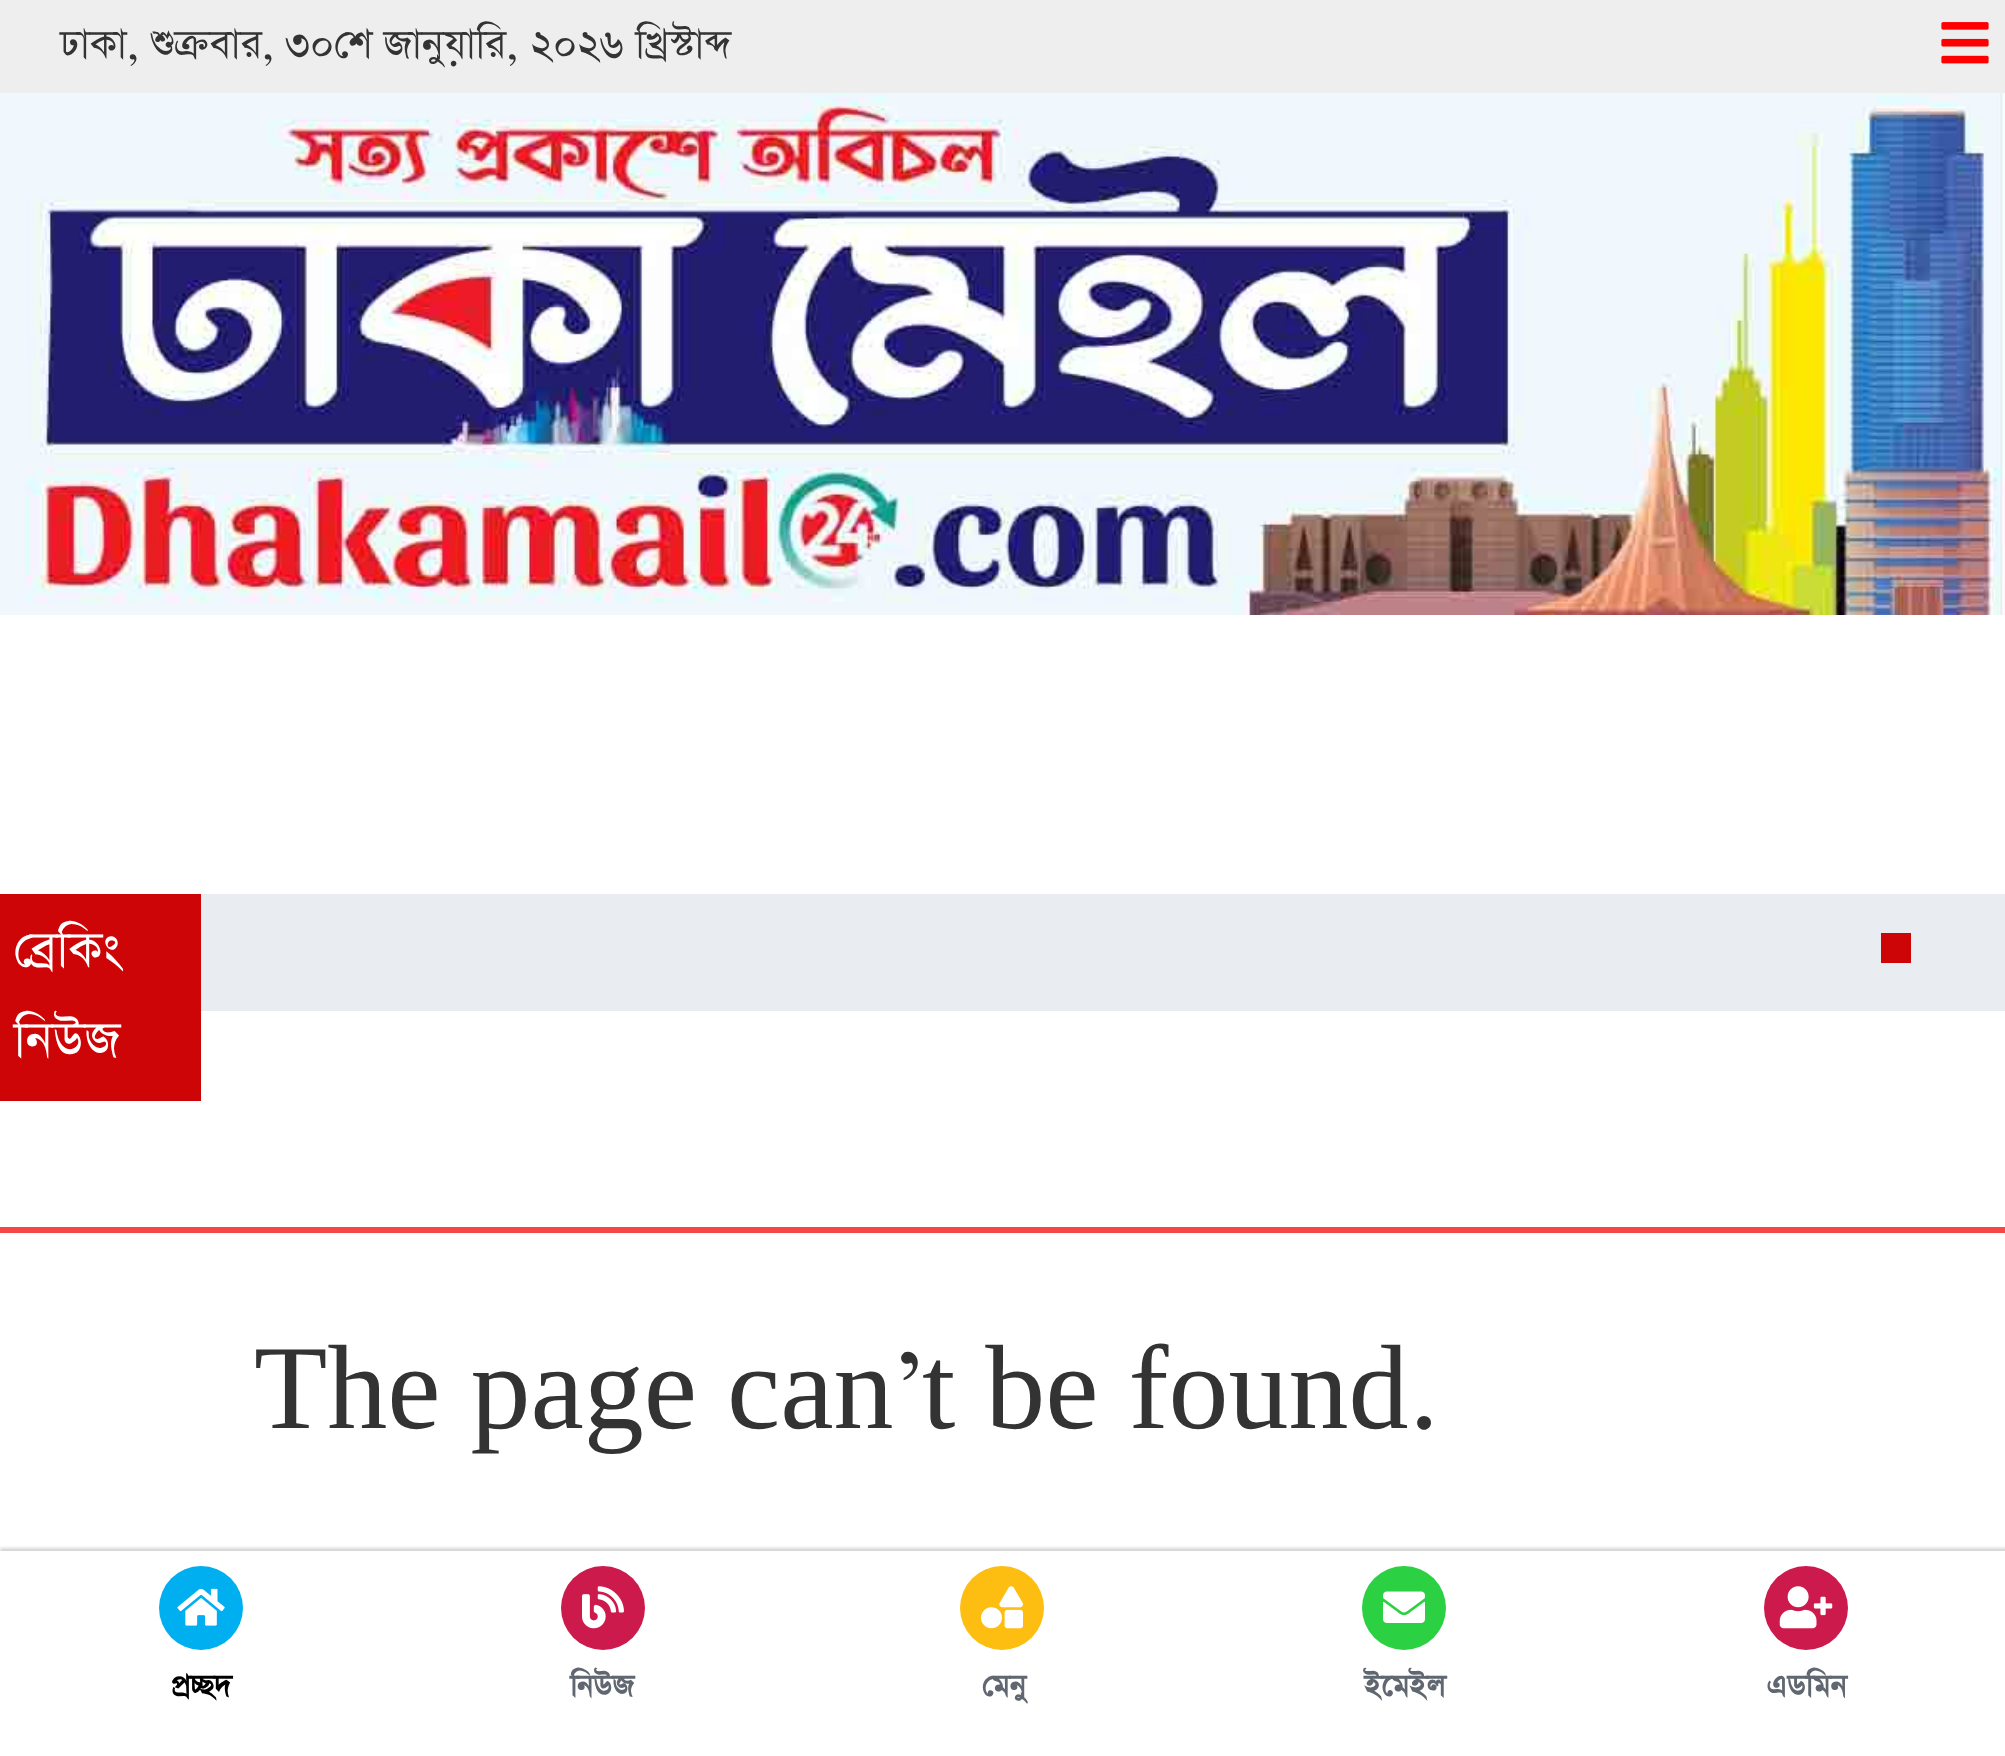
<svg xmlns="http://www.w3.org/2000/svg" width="2005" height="1756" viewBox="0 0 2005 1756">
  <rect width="100%" height="100%" fill="rgb(255,255,255)"/>
  <rect x="0" y="0" width="2005" height="93" fill="rgb(238,238,238)"/>
  <text x="60" y="59" font-family="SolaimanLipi" font-size="48" fill="rgb(51,51,51)">ঢাকা, শুক্রবার, ৩০শে জানুয়ারি, ২০২৬ খ্রিস্টাব্দ</text>
  <image x="1941" y="22" width="48" height="42" href="pic1.png"/>
  <image x="0" y="93" width="2005" height="522" href="pic2.png"/>
  <rect x="0" y="894" width="201" height="207" fill="rgb(206,5,7)"/>
  <g font-family="SolaimanLipi" font-size="60" fill="rgb(255,255,255)">
    <text>
      <tspan x="14" y="968">ব্রেকিং</tspan>
      <tspan x="14" y="1058">নিউজ</tspan>
    </text>
  </g>
  <rect x="201" y="894" width="1804" height="117" fill="rgb(233,237,241)"/>
  <rect x="1881" y="933" width="30" height="30" fill="rgb(206,5,7)"/>
  <rect x="0" y="1227" width="2005" height="6" fill="rgb(247,70,70)"/>
  <text x="254" y="1428" font-family="Liberation Serif" font-size="120" fill="rgb(51,51,51)">The page can</text>
  <text x="894" y="1428" font-family="SolaimanLipi" font-size="120" fill="rgb(51,51,51)">’</text>
  <text x="922" y="1428" font-family="Liberation Serif" font-size="120" fill="rgb(51,51,51)">t be found</text>
  <text x="1409" y="1428" font-family="SolaimanLipi" font-size="120" fill="rgb(51,51,51)">.</text>
  <rect x="0" y="1548" width="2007" height="207" fill="rgba(0,0,0,0.16)" filter="blur(1.5px)"/>
  <rect x="0" y="1551" width="2005" height="205" fill="rgb(255,255,255)"/>
  <circle cx="201" cy="1608" r="42" fill="rgb(0,175,239)"/>
  <image x="177" y="1588" width="48" height="38" href="pic3.png"/>
  <text x="171" y="1697" font-family="SolaimanLipi" font-size="36" font-weight="bold" fill="rgb(0,0,0)">প্রচ্ছদ</text>
  <circle cx="603" cy="1608" r="42" fill="rgb(205,26,77)"/>
  <image x="582" y="1586" width="42" height="43" href="pic4.png"/>
  <text x="570" y="1697" font-family="SolaimanLipi" font-size="36" font-weight="bold" fill="rgb(96,103,112)">নিউজ</text>
  <circle cx="1002" cy="1608" r="42" fill="rgb(253,190,17)"/>
  <image x="981" y="1586" width="42" height="43" href="pic5.png"/>
  <text x="982" y="1697" font-family="SolaimanLipi" font-size="36" font-weight="bold" fill="rgb(96,103,112)">মেনু</text>
  <circle cx="1404" cy="1608" r="42" fill="rgb(43,209,66)"/>
  <image x="1383" y="1591" width="42" height="32" href="pic6.png"/>
  <text x="1364" y="1697" font-family="SolaimanLipi" font-size="36" font-weight="bold" fill="rgb(96,103,112)">ইমেইল</text>
  <circle cx="1806" cy="1608" r="42" fill="rgb(205,26,77)"/>
  <image x="1779" y="1586" width="54" height="43" href="pic7.png"/>
  <text x="1766" y="1697" font-family="SolaimanLipi" font-size="36" font-weight="bold" fill="rgb(96,103,112)">এডমিন</text>
</svg>
